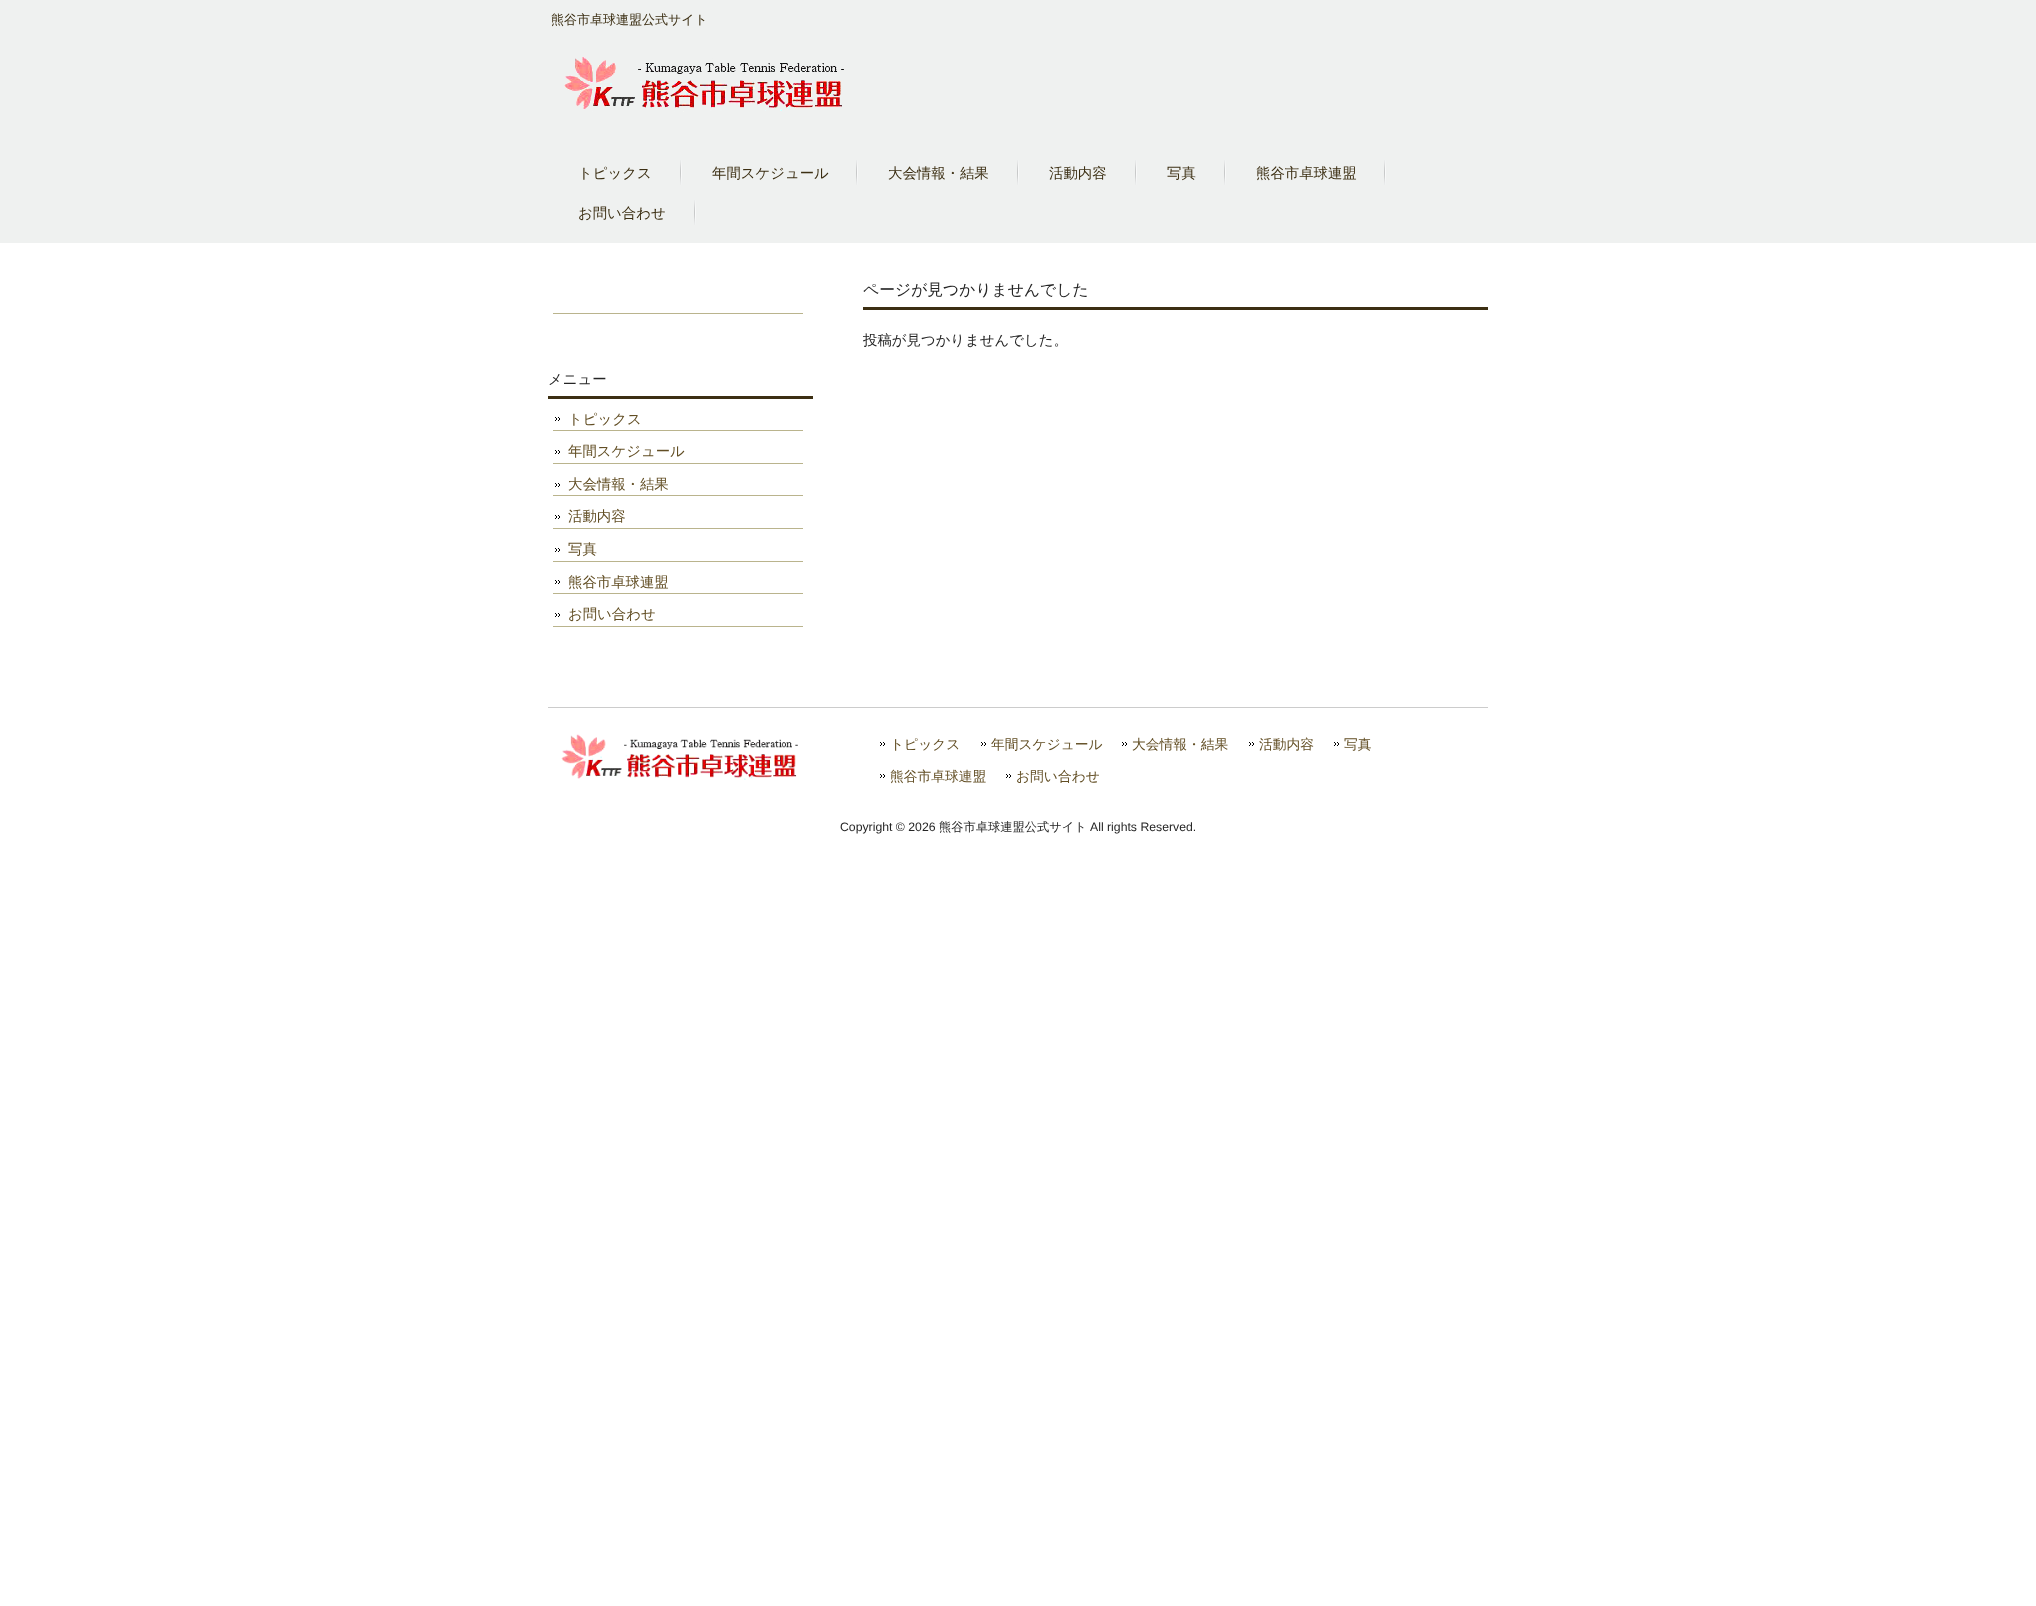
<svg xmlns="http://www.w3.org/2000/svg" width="2036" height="1606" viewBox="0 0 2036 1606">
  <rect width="100%" height="100%" fill="rgb(255,255,255)"/>
  <rect x="0" y="0" width="2036" height="243" fill="rgb(239,241,240)"/>
  <text x="551" y="24" font-family="WenQuanYi Zen Hei" font-size="13" font-weight="500" fill="rgb(60,47,19)">熊谷市卓球連盟公式サイト</text>
  <image x="564" y="57" width="280" height="55" href="pic1.png"/>
  <image x="680" y="160" width="2" height="25" href="pic2.png"/>
  <text x="578" y="178" font-family="WenQuanYi Zen Hei" font-size="14.4" font-weight="500" fill="rgb(60,47,19)">トピックス</text>
  <image x="856" y="160" width="2" height="25" href="pic2.png"/>
  <text x="712" y="178" font-family="WenQuanYi Zen Hei" font-size="14.4" font-weight="500" fill="rgb(60,47,19)">年間スケジュール</text>
  <image x="1017" y="160" width="2" height="25" href="pic2.png"/>
  <text x="888" y="178" font-family="WenQuanYi Zen Hei" font-size="14.4" font-weight="500" fill="rgb(60,47,19)">大会情報・結果</text>
  <image x="1135" y="160" width="2" height="25" href="pic2.png"/>
  <text x="1049" y="178" font-family="WenQuanYi Zen Hei" font-size="14.4" font-weight="500" fill="rgb(60,47,19)">活動内容</text>
  <image x="1224" y="160" width="2" height="25" href="pic2.png"/>
  <text x="1167" y="178" font-family="WenQuanYi Zen Hei" font-size="14.4" font-weight="500" fill="rgb(60,47,19)">写真</text>
  <image x="1384" y="160" width="2" height="25" href="pic2.png"/>
  <text x="1256" y="178" font-family="WenQuanYi Zen Hei" font-size="14.4" font-weight="500" fill="rgb(60,47,19)">熊谷市卓球連盟</text>
  <image x="694" y="200" width="2" height="25" href="pic2.png"/>
  <text x="578" y="218" font-family="WenQuanYi Zen Hei" font-size="14.4" font-weight="500" fill="rgb(60,47,19)">お問い合わせ</text>
  <rect x="863" y="307" width="625" height="3" fill="rgb(60,47,19)"/>
  <text x="863" y="295" font-family="WenQuanYi Zen Hei" font-size="15.8" font-weight="500" fill="rgb(37,37,37)">ページが見つかりませんでした</text>
  <text x="863" y="345" font-family="WenQuanYi Zen Hei" font-size="14.4" font-weight="500" fill="rgb(37,37,37)">投稿が見つかりませんでした。</text>
  <rect x="553" y="313" width="250" height="1" fill="rgb(186,180,141)"/>
  <rect x="548" y="396" width="265" height="3" fill="rgb(60,47,19)"/>
  <text x="548" y="384" font-family="WenQuanYi Zen Hei" font-size="14.4" font-weight="500" fill="rgb(37,37,37)">メニュー</text>
  <rect x="553" y="430" width="250" height="1" fill="rgb(186,180,141)"/>
  <image x="555" y="417" width="5" height="4" href="pic3.png"/>
  <text x="568" y="424" font-family="WenQuanYi Zen Hei" font-size="14.4" font-weight="500" fill="rgb(98,78,36)">トピックス</text>
  <rect x="553" y="463" width="250" height="1" fill="rgb(186,180,141)"/>
  <image x="555" y="450" width="5" height="4" href="pic3.png"/>
  <text x="568" y="456" font-family="WenQuanYi Zen Hei" font-size="14.4" font-weight="500" fill="rgb(98,78,36)">年間スケジュール</text>
  <rect x="553" y="495" width="250" height="1" fill="rgb(186,180,141)"/>
  <image x="555" y="483" width="5" height="4" href="pic3.png"/>
  <text x="568" y="489" font-family="WenQuanYi Zen Hei" font-size="14.4" font-weight="500" fill="rgb(98,78,36)">大会情報・結果</text>
  <rect x="553" y="528" width="250" height="1" fill="rgb(186,180,141)"/>
  <image x="555" y="515" width="5" height="4" href="pic3.png"/>
  <text x="568" y="521" font-family="WenQuanYi Zen Hei" font-size="14.4" font-weight="500" fill="rgb(98,78,36)">活動内容</text>
  <rect x="553" y="561" width="250" height="1" fill="rgb(186,180,141)"/>
  <image x="555" y="548" width="5" height="4" href="pic3.png"/>
  <text x="568" y="554" font-family="WenQuanYi Zen Hei" font-size="14.4" font-weight="500" fill="rgb(98,78,36)">写真</text>
  <rect x="553" y="593" width="250" height="1" fill="rgb(186,180,141)"/>
  <image x="555" y="580" width="5" height="4" href="pic3.png"/>
  <text x="568" y="587" font-family="WenQuanYi Zen Hei" font-size="14.4" font-weight="500" fill="rgb(98,78,36)">熊谷市卓球連盟</text>
  <rect x="553" y="626" width="250" height="1" fill="rgb(186,180,141)"/>
  <image x="555" y="613" width="5" height="4" href="pic3.png"/>
  <text x="568" y="619" font-family="WenQuanYi Zen Hei" font-size="14.4" font-weight="500" fill="rgb(98,78,36)">お問い合わせ</text>
  <rect x="548" y="707" width="940" height="1" fill="rgb(204,204,204)"/>
  <image x="561" y="734" width="237" height="46" href="pic4.png"/>
  <image x="880" y="742" width="5" height="4" href="pic3.png"/>
  <text x="890" y="749" font-family="WenQuanYi Zen Hei" font-size="13.75" font-weight="500" fill="rgb(98,78,36)">トピックス</text>
  <image x="981" y="742" width="5" height="4" href="pic3.png"/>
  <text x="991" y="749" font-family="WenQuanYi Zen Hei" font-size="13.75" font-weight="500" fill="rgb(98,78,36)">年間スケジュール</text>
  <image x="1122" y="742" width="5" height="4" href="pic3.png"/>
  <text x="1132" y="749" font-family="WenQuanYi Zen Hei" font-size="13.75" font-weight="500" fill="rgb(98,78,36)">大会情報・結果</text>
  <image x="1249" y="742" width="5" height="4" href="pic3.png"/>
  <text x="1259" y="749" font-family="WenQuanYi Zen Hei" font-size="13.75" font-weight="500" fill="rgb(98,78,36)">活動内容</text>
  <image x="1334" y="742" width="5" height="4" href="pic3.png"/>
  <text x="1344" y="749" font-family="WenQuanYi Zen Hei" font-size="13.75" font-weight="500" fill="rgb(98,78,36)">写真</text>
  <image x="880" y="774" width="5" height="4" href="pic3.png"/>
  <text x="890" y="781" font-family="WenQuanYi Zen Hei" font-size="13.75" font-weight="500" fill="rgb(98,78,36)">熊谷市卓球連盟</text>
  <image x="1006" y="774" width="5" height="4" href="pic3.png"/>
  <text x="1016" y="781" font-family="WenQuanYi Zen Hei" font-size="13.75" font-weight="500" fill="rgb(98,78,36)">お問い合わせ</text>
  <text x="840" y="831" font-family="Liberation Sans" font-size="12.25" fill="rgb(37,37,37)">Copyright © 2026</text>
  <text x="939" y="831" font-family="WenQuanYi Zen Hei" font-size="12.25" font-weight="500" fill="rgb(37,37,37)">熊谷市卓球連盟公式サイト</text>
  <text x="1090" y="831" font-family="Liberation Sans" font-size="12.25" fill="rgb(37,37,37)">All rights Reserved.</text>
</svg>
